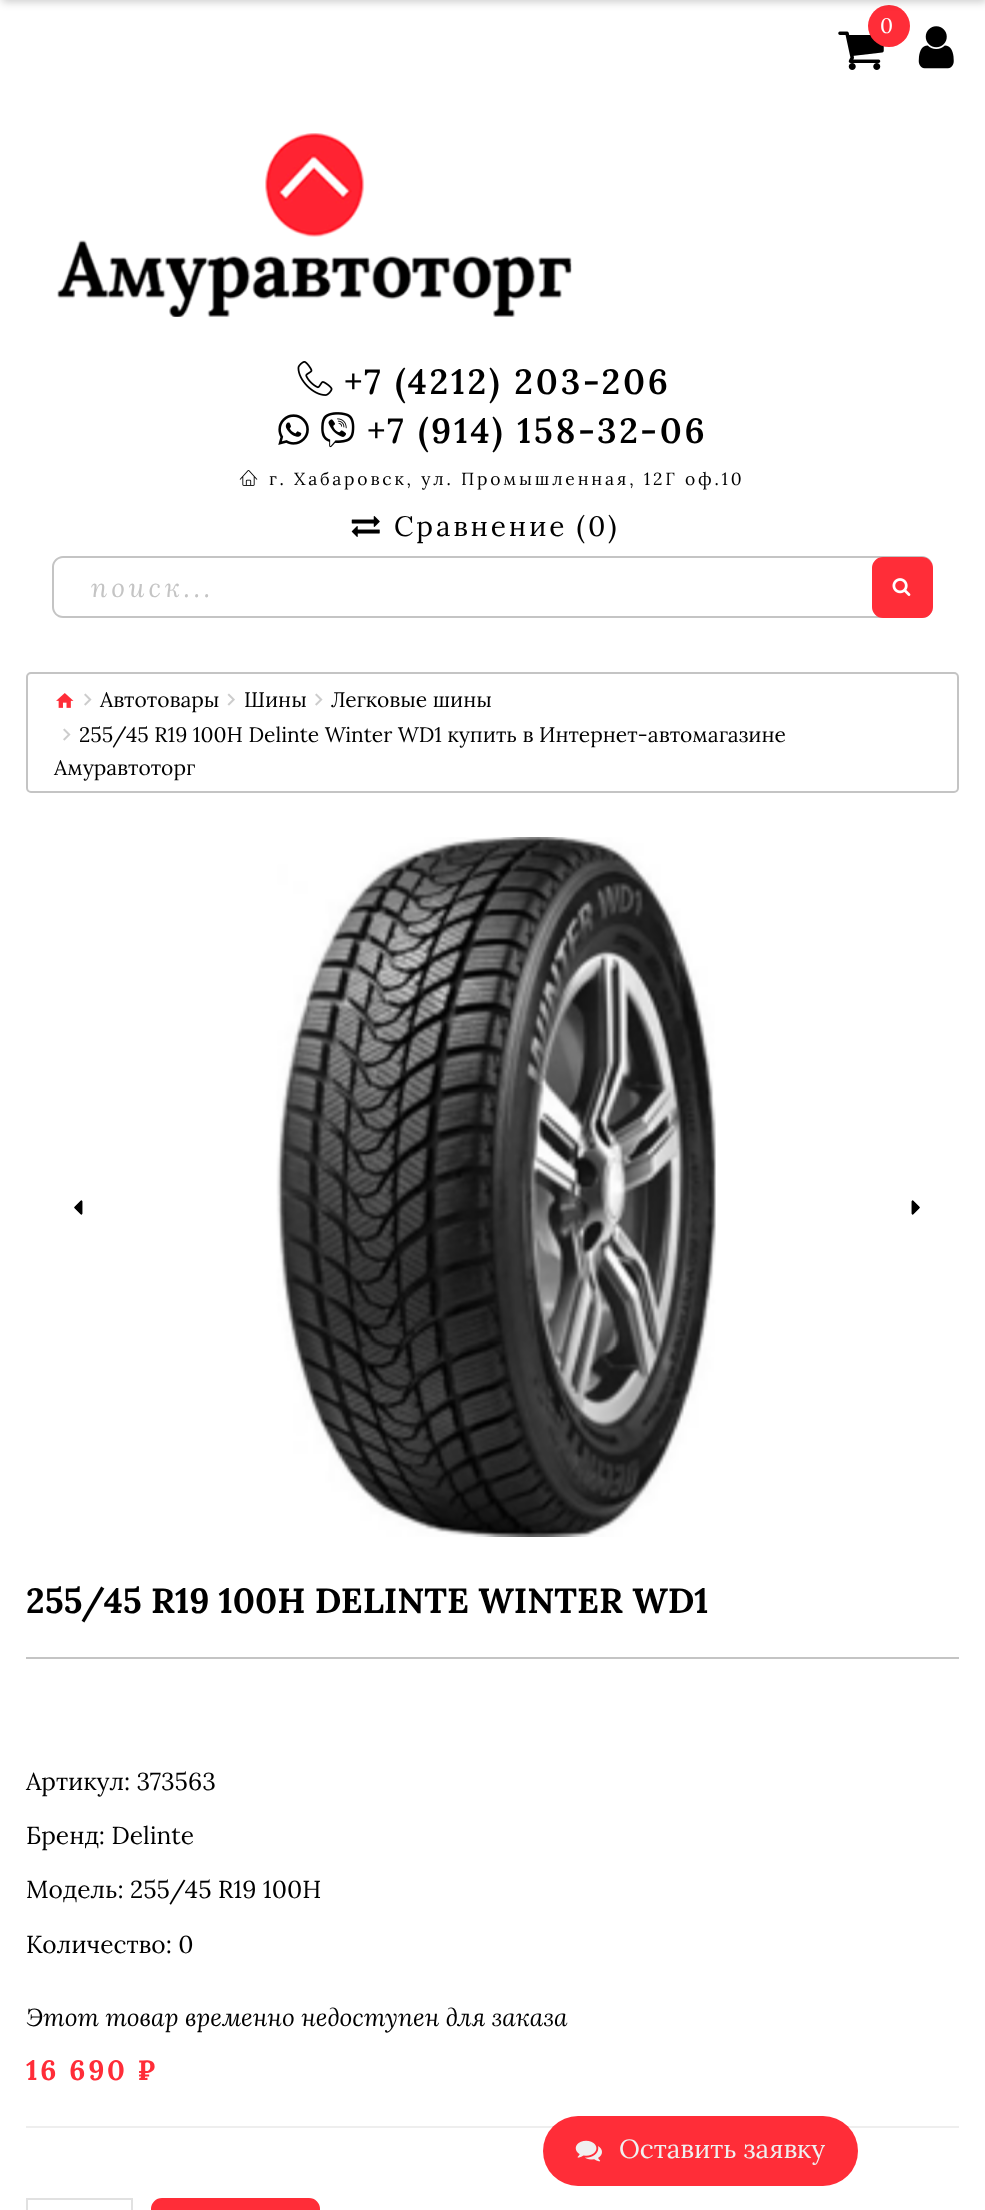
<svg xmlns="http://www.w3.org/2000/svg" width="985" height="2210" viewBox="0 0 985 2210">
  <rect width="100%" height="100%" fill="rgb(255,255,255)"/>
  <image x="838" y="31" width="46" height="39" href="pic1.png"/>
  <circle cx="889" cy="26" r="21" fill="rgb(255,45,56)"/>
  <rect x="2" y="-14" width="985" height="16" fill="rgba(0,0,0,0.2)" filter="blur(4.5px)"/>
  <text x="880" y="33" font-family="Lora" font-size="21" letter-spacing="5" fill="rgb(255,255,255)">0</text>
  <image x="57" y="133" width="515" height="184" href="pic2.png"/>
  <image x="297" y="361" width="36" height="35" href="pic3.png"/>
  <text x="344" y="394" font-family="Lora" font-size="35" font-weight="600" letter-spacing="2.8" fill="rgb(0,0,0)">+7 (4212) 203-206</text>
  <image x="278" y="414" width="31" height="31" href="pic4.png"/>
  <image x="321" y="412" width="34" height="36" href="pic5.png"/>
  <text x="367" y="443" font-family="Lora" font-size="35" font-weight="600" letter-spacing="2.8" fill="rgb(0,0,0)">+7 (914) 158-32-06</text>
  <image x="239" y="470" width="19" height="16" href="pic6.png"/>
  <text x="269" y="485" font-family="Lora" font-size="17.5" letter-spacing="2.8" fill="rgb(0,0,0)">г. Хабаровск, ул. Промышленная, 12Г оф.10</text>
  <image x="918" y="26" width="36" height="43" href="pic7.png"/>
  <image x="351" y="516" width="29" height="21" href="pic8.png"/>
  <g font-family="Lora" font-size="28" letter-spacing="2.8" fill="rgb(0,0,0)">
    <text x="394" y="536" word-spacing="-1">Сравнение (</text>
    <text x="588" y="536">0</text>
    <text x="608" y="536">)</text>
  </g>
  <path d="M63 556H922C928 556 933 561 933 567V607C933 613 928 618 922 618H63C57 618 52 613 52 607V567C52 561 57 556 63 556ZM63 558H922C928 558 933 562 933 567V607C933 612 928 616 922 616H63C58 616 54 612 54 607V567C54 562 58 558 63 558Z" fill="rgb(196,196,196)" fill-rule="evenodd"/>
  <text x="91" y="597" font-family="Lora" font-size="26.25" font-style="italic" letter-spacing="4" fill="rgb(196,196,196)">поиск...</text>
  <rect x="873" y="558" width="59" height="59" rx="10" fill="rgb(255,45,56)" stroke="rgb(255,45,56)" stroke-width="2"/>
  <image x="892" y="578" width="19" height="18" href="pic9.png"/>
  <rect x="27" y="673" width="931" height="119" rx="4" fill="none" stroke="rgb(196,196,196)" stroke-width="2"/>
  <image x="56" y="693" width="18" height="15" href="pic10.png"/>
  <image x="84" y="693" width="8" height="13" href="pic11.png"/>
  <text x="100" y="707" font-family="Lora" font-size="21" fill="rgb(0,0,0)">Автотовары</text>
  <image x="227" y="693" width="8" height="13" href="pic12.png"/>
  <text x="244" y="707" font-family="Lora" font-size="21" fill="rgb(0,0,0)">Шины</text>
  <image x="315" y="693" width="8" height="13" href="pic11.png"/>
  <text x="331" y="707" font-family="Lora" font-size="21" fill="rgb(0,0,0)">Легковые шины</text>
  <image x="63" y="728" width="8" height="13" href="pic11.png"/>
  <g font-family="Lora" font-size="21" fill="rgb(0,0,0)">
    <text x="79" y="742">255/45 R19 100H Delinte Winter WD1 купить в Интернет-автомагазине</text>
    <text x="54" y="775">Амуравтоторг</text>
  </g>
  <image x="276" y="837" width="440" height="700" href="pic13.png"/>
  <image x="74" y="1200" width="9" height="15" href="pic14.png"/>
  <image x="74" y="1200" width="9" height="15" href="pic15.png"/>
  <image x="911" y="1200" width="9" height="15" href="pic16.png"/>
  <image x="911" y="1200" width="9" height="15" href="pic17.png"/>
  <text x="26" y="1613" font-family="Lora" font-size="35" font-weight="bold" fill="rgb(0,0,0)">255/45 R19 100H DELINTE WINTER WD1</text>
  <rect x="26" y="1657" width="933" height="2" fill="rgb(196,196,196)"/>
  <g font-family="Lora" font-size="24.5" fill="rgb(0,0,0)">
    <text x="26" y="1790">Артикул: 373563</text>
    <text x="26" y="1844">Бренд: Delinte</text>
    <text x="26" y="1898">Модель: 255/45 R19 100H</text>
    <text x="26" y="1953">Количество: 0</text>
  </g>
  <text x="26" y="2026" font-family="Lora" font-size="24.5" font-style="italic" fill="rgb(0,0,0)">Этот товар временно недоступен для заказа</text>
  <text x="26" y="2080" font-family="Lora" font-size="28" font-weight="bold" letter-spacing="2.8" fill="rgb(255,45,56)">16 690 ₽</text>
  <rect x="26" y="2126" width="933" height="2" fill="rgb(238,238,238)"/>
  <rect x="27" y="2199" width="105" height="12" fill="none" stroke="rgb(225,225,225)" stroke-width="2"/>
  <rect x="152" y="2199" width="167" height="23" rx="10" fill="rgb(255,45,56)" stroke="rgb(255,45,56)" stroke-width="2"/>
  <rect x="543" y="2116" width="315" height="70" rx="35" fill="rgb(255,45,56)"/>
  <image x="575" y="2140" width="27" height="22" href="pic18.png"/>
  <text x="619" y="2158" font-family="Lora" font-size="26.25" fill="rgb(240,240,240)">Оставить заявку</text>
</svg>
